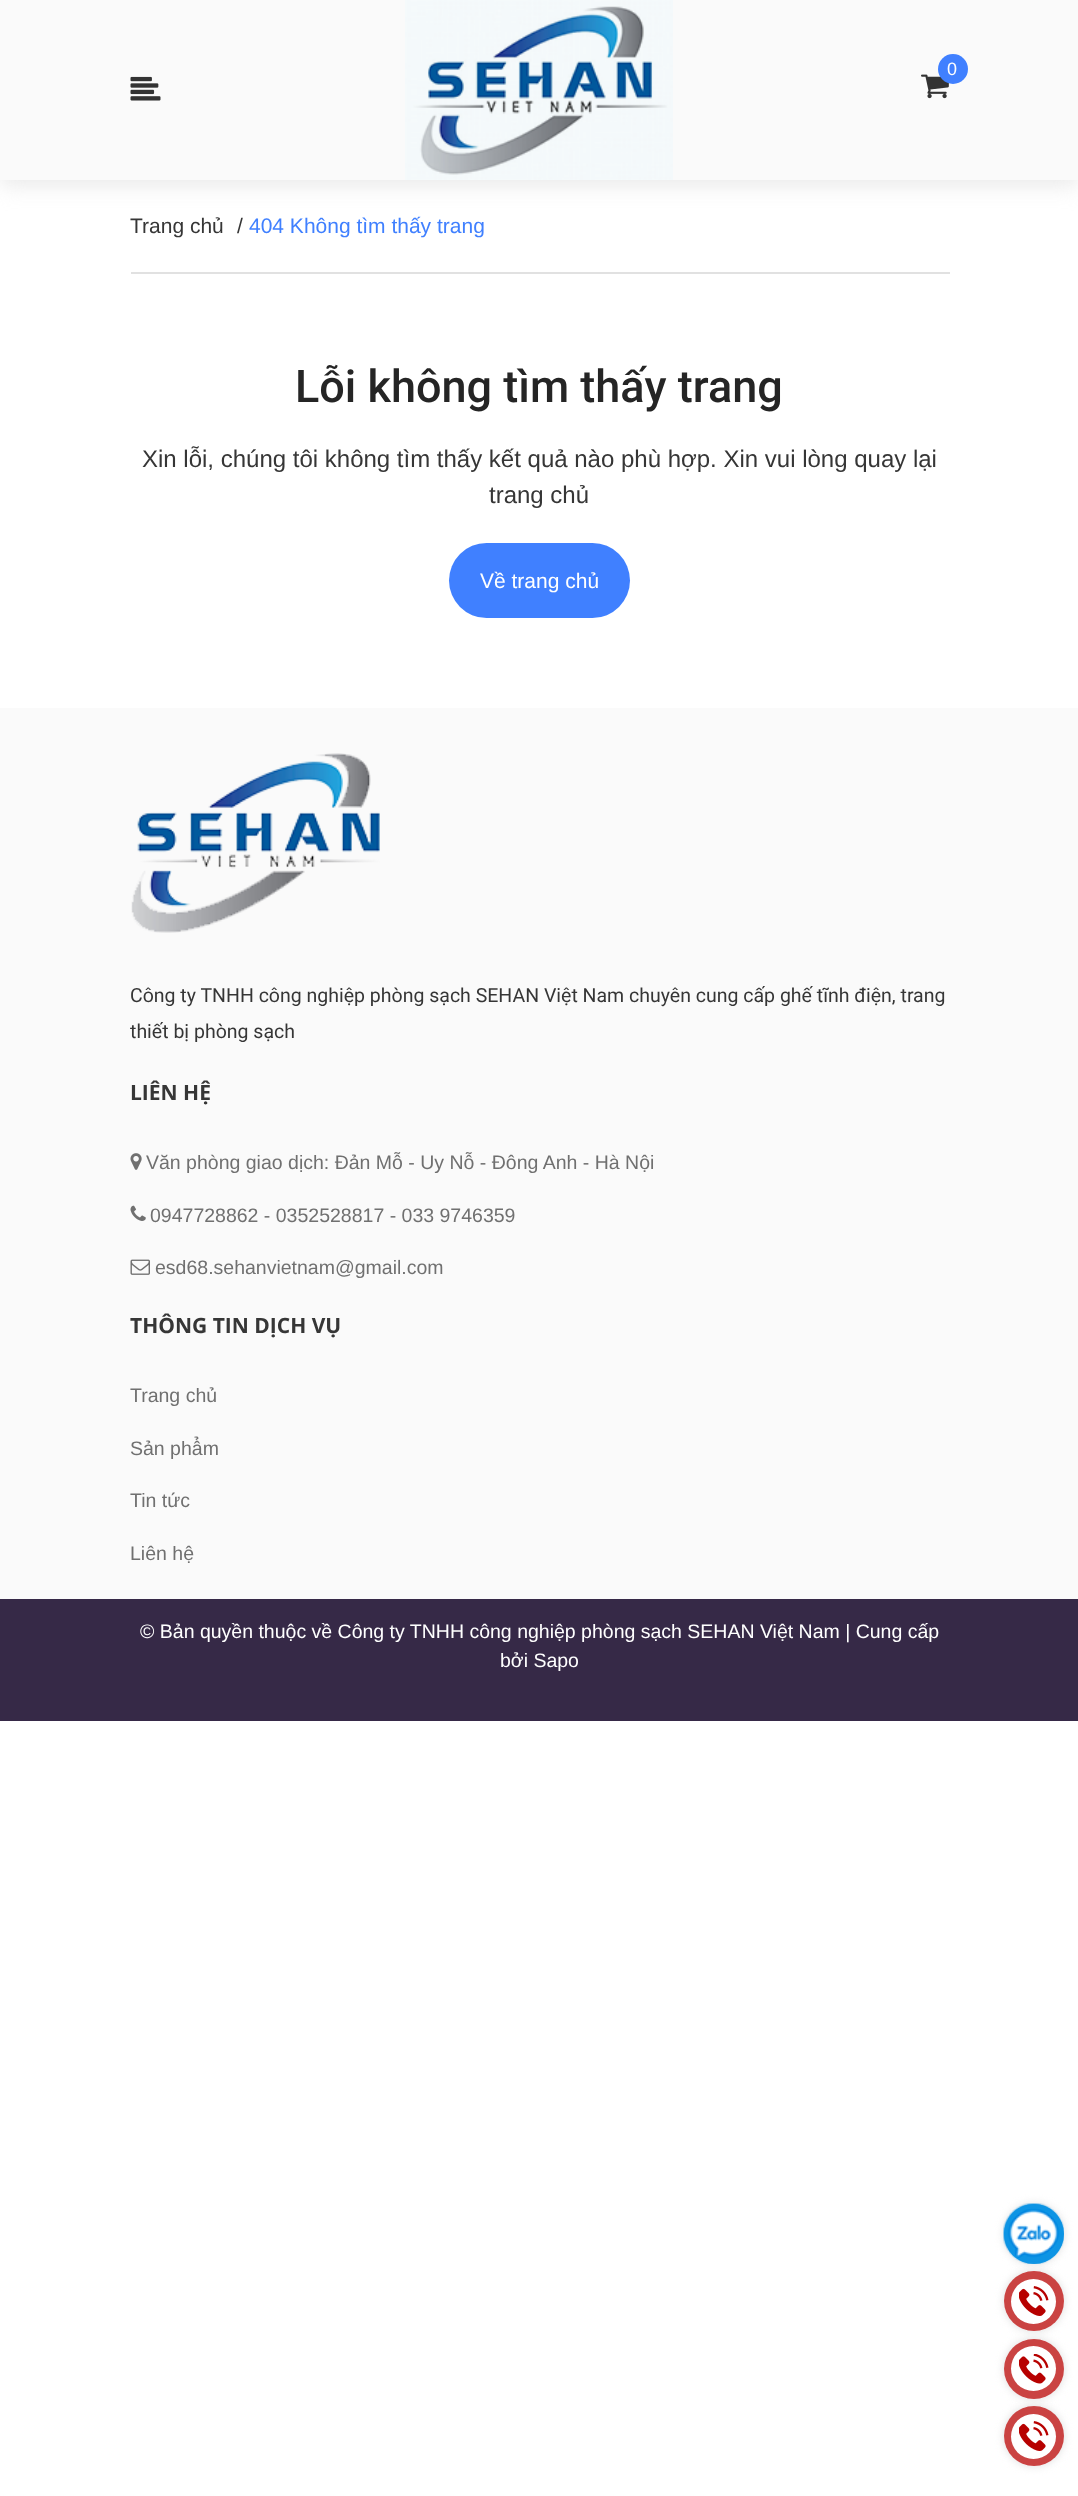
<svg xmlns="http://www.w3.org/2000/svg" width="1078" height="2496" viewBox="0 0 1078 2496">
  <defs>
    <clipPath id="clip1"><path d="M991 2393H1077V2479H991ZM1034 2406C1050.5 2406 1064 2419.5 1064 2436C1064 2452.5 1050.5 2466 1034 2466C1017.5 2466 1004 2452.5 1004 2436C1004 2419.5 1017.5 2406 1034 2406Z" clip-rule="evenodd"/></clipPath>
    <clipPath id="clip2"><path d="M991 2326H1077V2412H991ZM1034 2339C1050.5 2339 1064 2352.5 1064 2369C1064 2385.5 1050.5 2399 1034 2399C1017.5 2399 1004 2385.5 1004 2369C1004 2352.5 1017.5 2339 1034 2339Z" clip-rule="evenodd"/></clipPath>
    <clipPath id="clip3"><path d="M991 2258H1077V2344H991ZM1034 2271C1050.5 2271 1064 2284.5 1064 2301C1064 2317.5 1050.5 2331 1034 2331C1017.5 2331 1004 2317.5 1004 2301C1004 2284.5 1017.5 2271 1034 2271Z" clip-rule="evenodd"/></clipPath>
  </defs>
  <rect width="100%" height="100%" fill="rgb(255,255,255)"/>
  <rect x="0" y="5" width="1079" height="180" fill="rgba(225,225,225,0.77)" filter="blur(11px)"/>
  <rect x="0" y="0" width="1078" height="180" fill="rgb(250,250,250)"/>
  <image x="405" y="0" width="268" height="180" href="pic1.png"/>
  <image x="921" y="74" width="28" height="25" href="pic2.png"/>
  <circle cx="953" cy="69" r="15" fill="rgb(64,128,255)"/>
  <text x="947" y="75" font-family="Liberation Sans" font-size="18" fill="rgb(255,255,255)">0</text>
  <image x="130" y="76" width="31" height="25" href="pic3.png"/>
  <rect x="131" y="272" width="819" height="2" fill="rgb(225,225,225)"/>
  <g font-family="Liberation Sans" font-size="21" fill="rgb(54,54,54)">
    <text x="130" y="233">Trang chủ</text>
    <text x="237" y="233">/</text>
  </g>
  <text x="249" y="233" font-family="Liberation Sans" font-size="21" fill="rgb(64,128,255)">404 Không tìm thấy trang</text>
  <text x="295" y="402" font-family="Roboto" font-size="45" font-weight="500" fill="rgb(37,37,37)">Lỗi không tìm thấy trang</text>
  <g font-family="Liberation Sans" font-size="24" fill="rgb(54,54,54)">
    <text x="142" y="467">Xin lỗi, chúng tôi không tìm thấy kết quả nào phù hợp. Xin vui lòng quay lại</text>
    <text x="489" y="503">trang chủ</text>
  </g>
  <rect x="449" y="543" width="181" height="75" rx="37.5" fill="rgb(64,128,255)"/>
  <text x="480" y="588" font-family="Liberation Sans" font-size="21" fill="rgb(255,255,255)">Về trang chủ</text>
  <rect x="0" y="708" width="1078" height="891" fill="rgb(250,250,250)"/>
  <image x="131" y="753" width="249" height="180" href="pic4.png"/>
  <g font-family="Roboto" font-size="19.5" fill="rgb(54,54,54)">
    <text>
      <tspan x="130" y="1002">Công ty TNHH công nghiệp phòng sạch SEHAN Việt Nam chuyên cung cấp ghế tĩnh điện, trang</tspan>
      <tspan x="130" y="1038">thiết bị phòng sạch</tspan>
    </text>
  </g>
  <text x="130" y="1100" font-family="Open Sans" font-size="21" font-weight="bold" fill="rgb(54,54,54)">LIÊN HỆ</text>
  <image x="130" y="1153" width="12" height="17" href="pic5.png"/>
  <text x="146" y="1169" font-family="Liberation Sans" font-size="19.5" fill="rgb(112,112,112)">Văn phòng giao dịch: Đản Mỗ - Uy Nỗ - Đông Anh - Hà Nội</text>
  <image x="130" y="1205" width="16" height="16" href="pic6.png"/>
  <text x="150" y="1222" font-family="Liberation Sans" font-size="19.5" fill="rgb(112,112,112)">0947728862 - 0352528817 - 033 9746359</text>
  <image x="130" y="1259" width="20" height="16" href="pic7.png"/>
  <text x="155" y="1274" font-family="Liberation Sans" font-size="19.5" fill="rgb(112,112,112)">esd68.sehanvietnam@gmail.com</text>
  <text x="130" y="1333" font-family="Open Sans" font-size="21" font-weight="bold" fill="rgb(54,54,54)">THÔNG TIN DỊCH VỤ</text>
  <g font-family="Liberation Sans" font-size="19.5" fill="rgb(112,112,112)">
    <text x="130" y="1402">Trang chủ</text>
    <text x="130" y="1455">Sản phẩm</text>
    <text x="130" y="1507">Tin tức</text>
    <text x="130" y="1560">Liên hệ</text>
  </g>
  <rect x="0" y="1599" width="1078" height="122" fill="rgb(54,41,71)"/>
  <g font-family="Liberation Sans" font-size="19.5" fill="rgb(255,255,255)">
    <text x="140" y="1638">© Bản quyền thuộc về Công ty TNHH công nghiệp phòng sạch SEHAN Việt Nam | Cung cấp</text>
    <text x="500" y="1667">bởi Sapo</text>
  </g>
  <rect x="1004" y="2204" width="60" height="60" rx="30" fill="rgb(221,221,221)" filter="blur(4px)"/>
  <circle cx="1034" cy="2234" r="30" fill="rgb(14,148,228)"/>
  <image x="1003" y="2203" width="61" height="61" href="pic8.png"/>
  <g clip-path="url(#clip1)">
    <rect x="1004" y="2406" width="60" height="60" rx="30" fill="rgb(221,221,221)" filter="blur(4px)"/>
  </g>
  <circle cx="1034" cy="2436" r="30" fill="rgba(183,1,0,0.74)"/>
  <g clip-path="url(#clip2)">
    <rect x="1004" y="2339" width="60" height="60" rx="30" fill="rgb(221,221,221)" filter="blur(4px)"/>
  </g>
  <circle cx="1034" cy="2369" r="30" fill="rgba(183,1,0,0.74)"/>
  <g clip-path="url(#clip3)">
    <rect x="1004" y="2271" width="60" height="60" rx="30" fill="rgb(221,221,221)" filter="blur(4px)"/>
  </g>
  <circle cx="1034" cy="2301" r="30" fill="rgba(183,1,0,0.74)"/>
  <circle cx="1033.5" cy="2301.5" r="22.5" fill="rgb(255,255,255)"/>
  <image x="1019" y="2286" width="30" height="30" href="pic9.png"/>
  <circle cx="1033.5" cy="2368.5" r="22.5" fill="rgb(255,255,255)"/>
  <image x="1019" y="2354" width="30" height="30" href="pic10.png"/>
  <circle cx="1033.5" cy="2436.5" r="22.5" fill="rgb(255,255,255)"/>
  <image x="1019" y="2421" width="30" height="30" href="pic9.png"/>
</svg>
